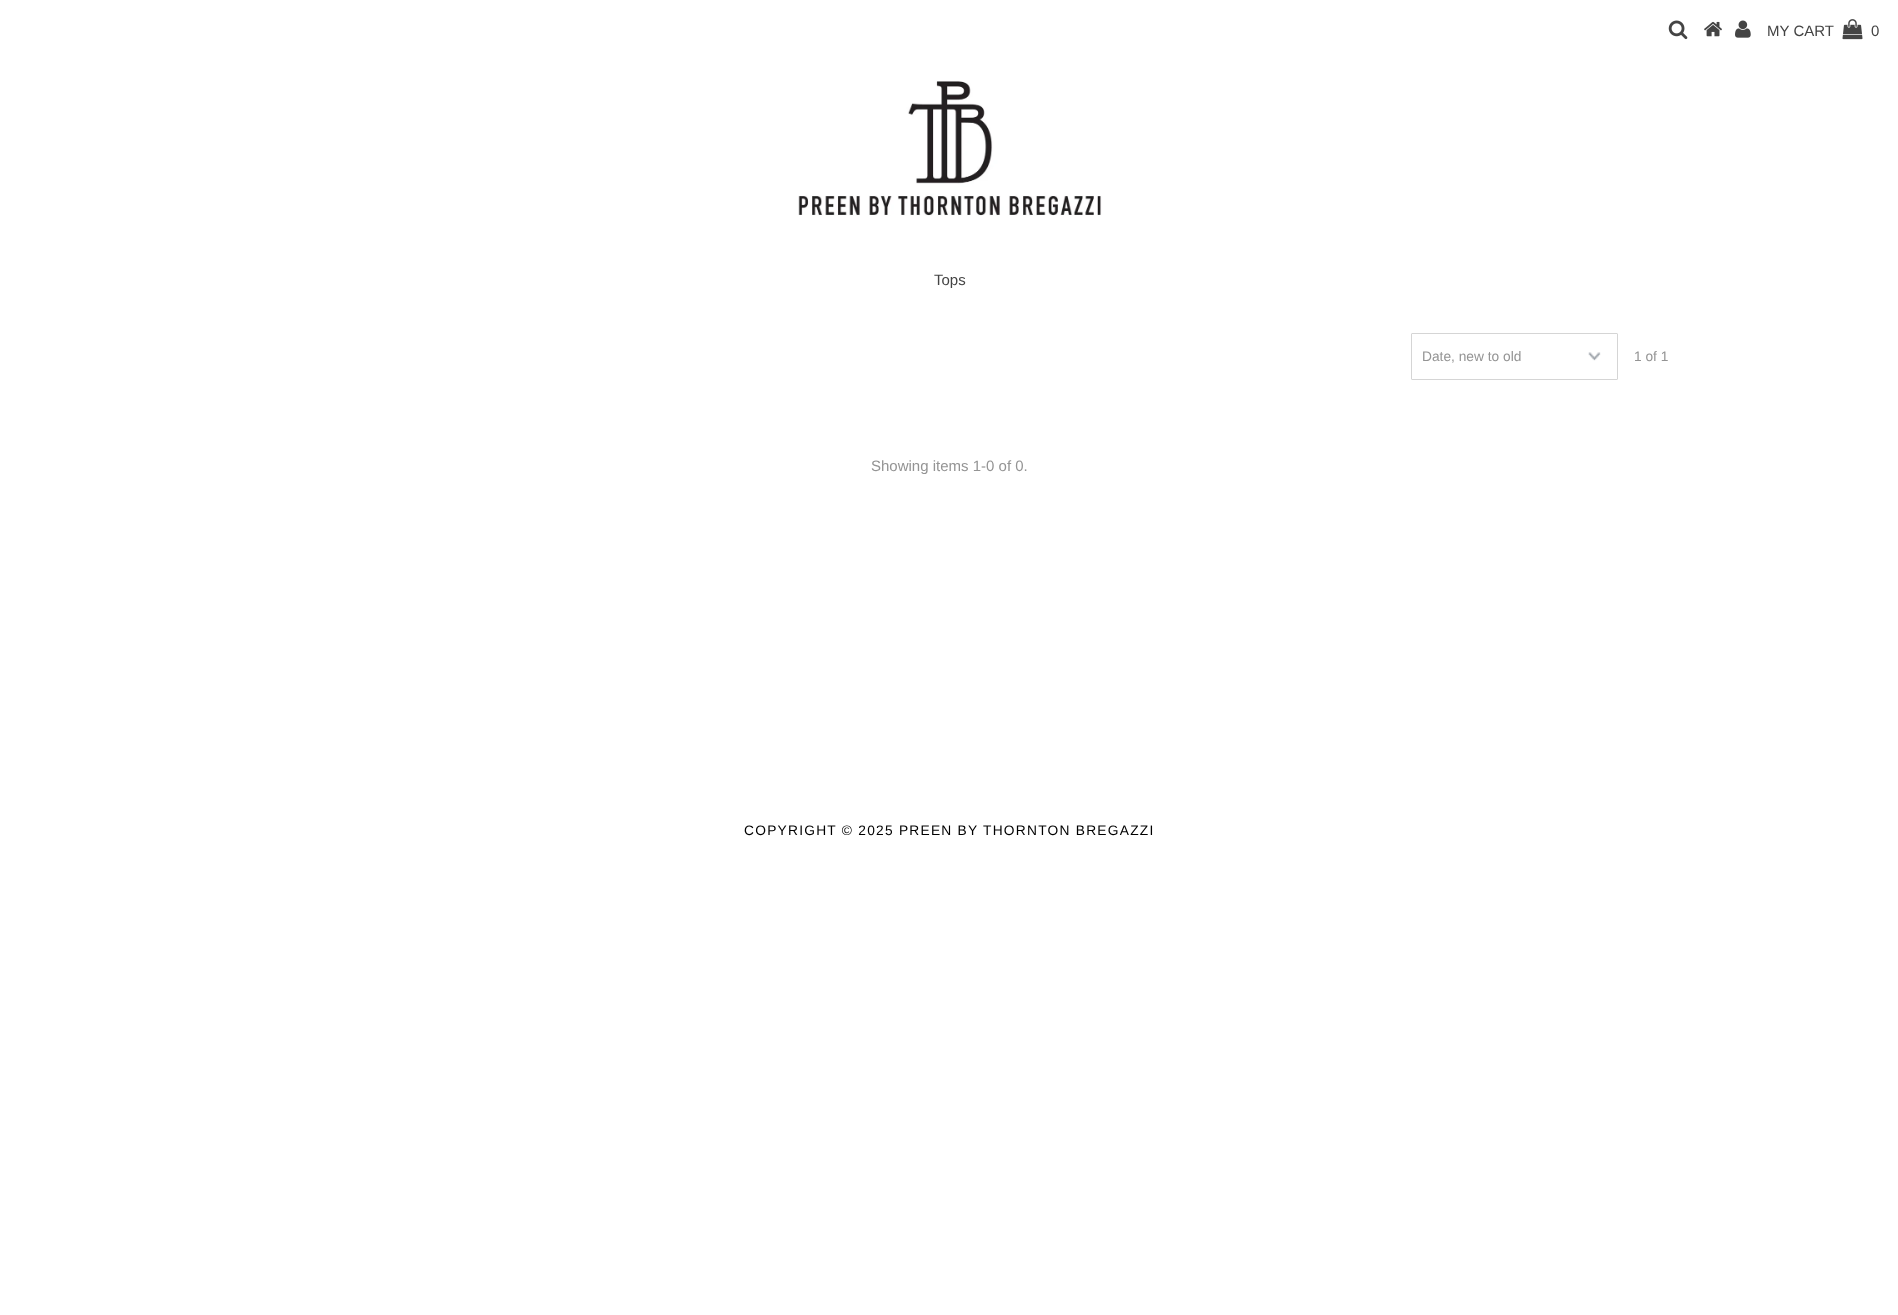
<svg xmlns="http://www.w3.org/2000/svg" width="1898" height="1315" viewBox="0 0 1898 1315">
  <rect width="100%" height="100%" fill="rgb(255,255,255)"/>
  <image x="1668" y="20" width="20" height="20" href="pic1.png"/>
  <image x="1704" y="21" width="18" height="16" href="pic2.png"/>
  <image x="1735" y="20" width="16" height="18" href="pic3.png"/>
  <text x="1767" y="36" font-family="Liberation Sans" font-size="15" fill="rgb(68,68,68)">MY CART</text>
  <image x="1842" y="19" width="21" height="21" href="pic4.png"/>
  <text x="1871" y="36" font-family="Liberation Sans" font-size="15" fill="rgb(68,68,68)">0</text>
  <image x="798" y="81" width="304" height="135" href="pic5.png"/>
  <text x="934" y="285" font-family="Liberation Sans" font-size="15" fill="rgb(68,68,68)">Tops</text>
  <image x="1588" y="352" width="13" height="9" href="pic6.png"/>
  <rect x="1411.5" y="333.5" width="206" height="46" rx="0.5" fill="none" stroke="rgb(213,213,213)"/>
  <g font-family="Liberation Sans" font-size="13.75" fill="rgb(148,148,148)">
    <text x="1422" y="361">Date, new to old</text>
    <text x="1634" y="361">1 of 1</text>
  </g>
  <text x="871" y="471" font-family="Liberation Sans" font-size="15" fill="rgb(148,148,148)">Showing items 1-0 of 0.</text>
  <text x="744" y="835" font-family="Liberation Sans" font-size="13.75" letter-spacing="1.25" fill="rgb(0,0,0)">COPYRIGHT © 2025 PREEN BY THORNTON BREGAZZI</text>
</svg>
